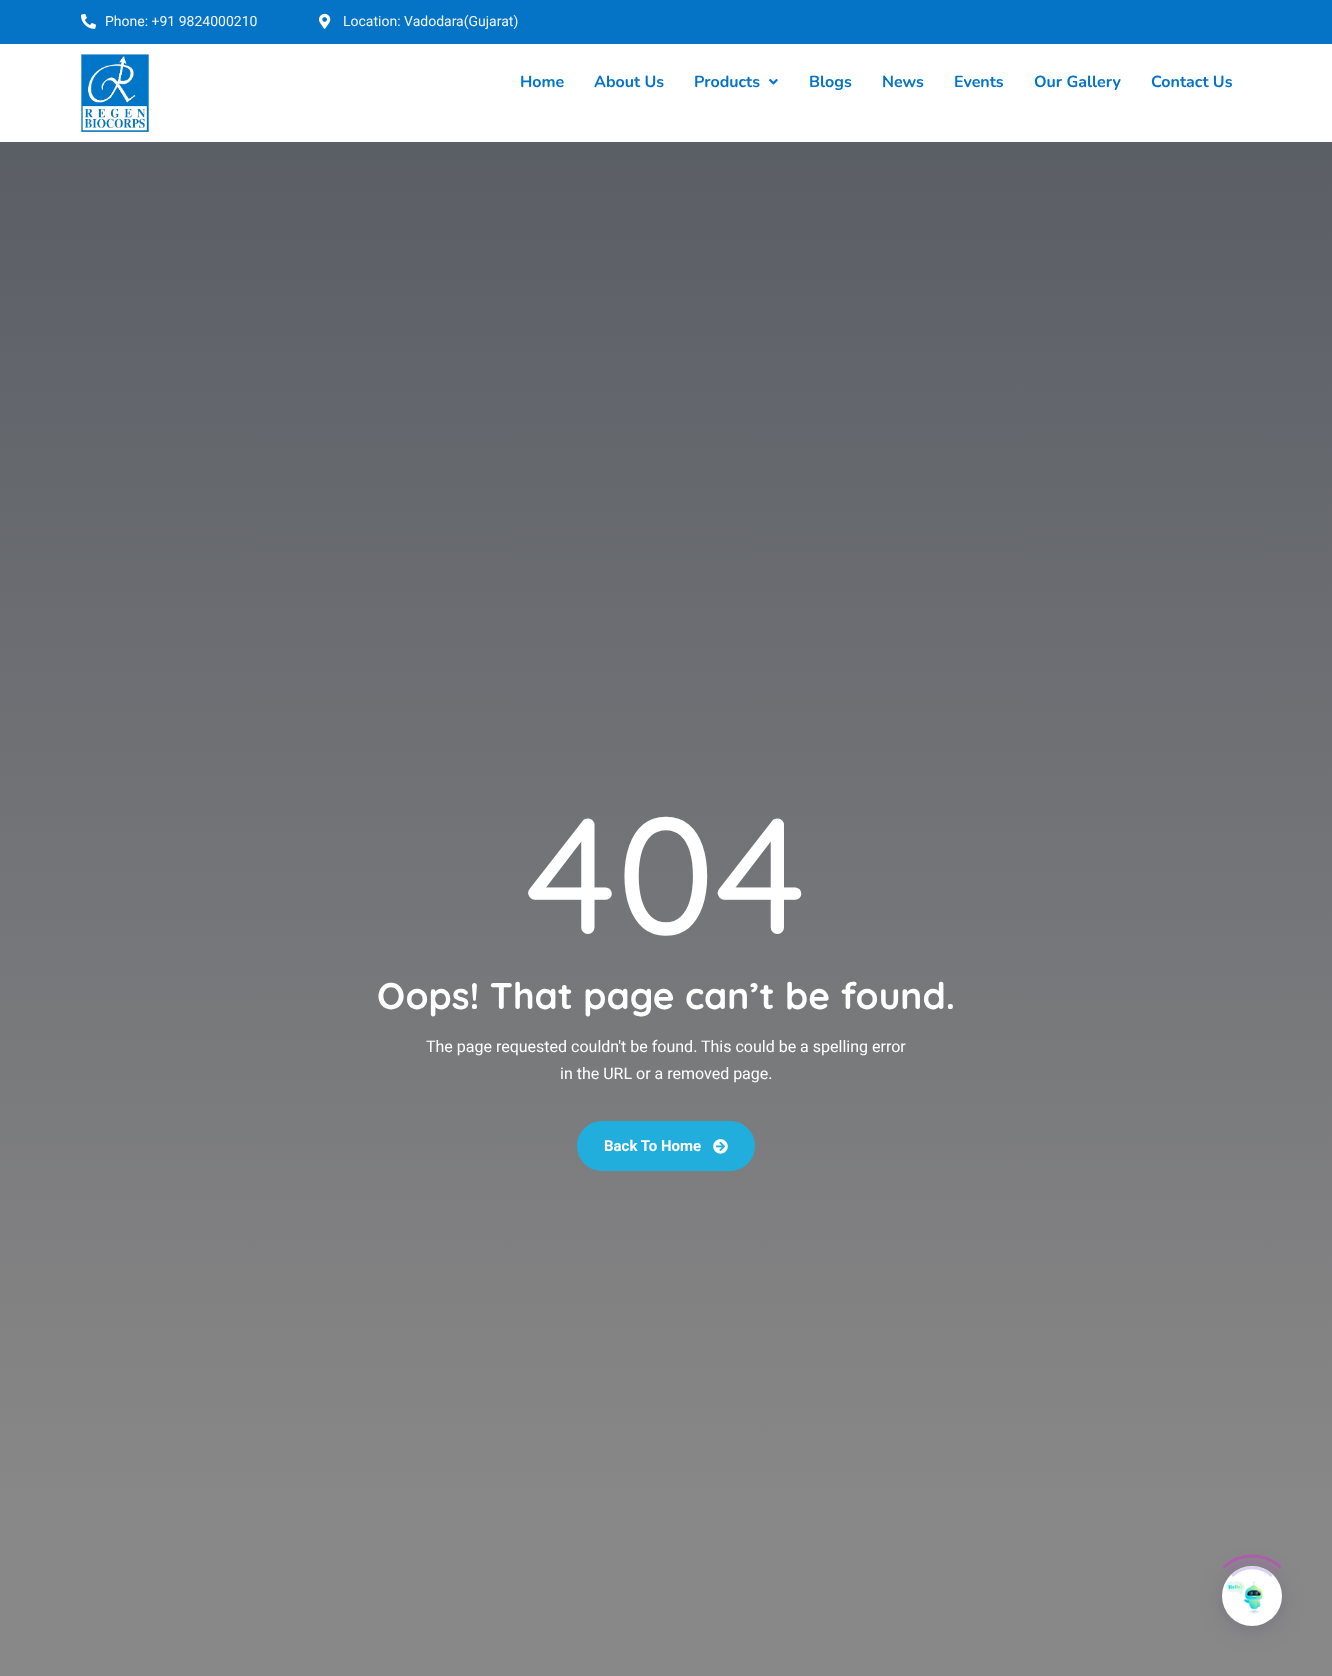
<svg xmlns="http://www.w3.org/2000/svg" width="1332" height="1676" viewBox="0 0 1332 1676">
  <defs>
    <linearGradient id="g1" gradientUnits="userSpaceOnUse" x1="666" y1="142" x2="666" y2="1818"><stop offset="0" stop-color="rgb(90,94,101)"/><stop offset="0.82" stop-color="rgb(137,136,136)"/></linearGradient>
  </defs>
  <rect width="100%" height="100%" fill="rgb(255,255,255)"/>
  <rect x="0" y="0" width="1332" height="44" fill="rgb(5,115,198)"/>
  <image x="81" y="13" width="15" height="16" href="pic1.png"/>
  <text x="105" y="26" font-family="Roboto" font-size="14" fill="rgb(241,246,253)">Phone: +91 9824000210</text>
  <image x="319" y="13" width="12" height="16" href="pic2.png"/>
  <text x="343" y="26" font-family="Roboto" font-size="14" fill="rgb(241,246,253)">Location: Vadodara(Gujarat)</text>
  <image x="81" y="54" width="68" height="78" href="pic3.png"/>
  <g font-family="Nunito" font-size="16" font-weight="bold" fill="rgb(5,115,198)">
    <text x="520" y="87">Home</text>
    <text x="594" y="87">About Us</text>
    <text x="694" y="87">Products</text>
  </g>
  <image x="769" y="79" width="9" height="6" href="pic4.png"/>
  <g font-family="Nunito" font-size="16" font-weight="bold" fill="rgb(5,115,198)">
    <text x="809" y="87">Blogs</text>
    <text x="882" y="87">News</text>
    <text x="954" y="87">Events</text>
    <text x="1034" y="87">Our Gallery</text>
    <text x="1151" y="87">Contact Us</text>
  </g>
  <rect x="0" y="142" width="1332" height="1534" fill="url(#g1)"/>
  <text x="526" y="934" font-family="Quicksand" font-size="165" font-weight="500" fill="rgb(255,255,255)">404</text>
  <text x="377" y="1009" font-family="Quicksand" font-size="37" font-weight="bold" fill="rgb(255,255,255)">Oops! That page can’t be found.</text>
  <g font-family="Roboto" font-size="16" fill="rgb(255,255,255)">
    <text x="426" y="1052">The page requested couldn't be found. This could be a spelling error</text>
    <text x="560" y="1079">in the URL or a removed page.</text>
  </g>
  <rect x="578" y="1122" width="176" height="48" rx="24" fill="rgb(33,174,221)" stroke="rgb(33,174,221)" stroke-width="2"/>
  <text x="604" y="1151" font-family="Roboto" font-size="15" font-weight="bold" fill="rgb(255,255,255)">Back To Home</text>
  <image x="713" y="1139" width="15" height="15" href="pic5.png"/>
  <rect x="1222" y="1570" width="60" height="60" rx="30" fill="rgb(118,117,128)" filter="blur(10px)"/>
  <circle cx="1252" cy="1596" r="30" fill="rgb(255,255,255)"/>
  <path d="M1232 1576C1243 1565 1261 1565 1272 1576" fill="none" stroke="rgba(147,112,219,0.32)" stroke-width="3"/>
  <path d="M1227.5 1571.5C1241 1558.5 1263 1558.5 1276.5 1571.5" fill="none" stroke="rgb(150,118,159)" stroke-width="3"/>
  <path d="M1223.5 1567.5C1239 1552 1265 1552 1280.5 1567.5" fill="none" stroke="rgb(174,92,174)" stroke-width="3"/>
  <image x="1226" y="1581" width="37" height="33" href="pic6.png"/>
</svg>
